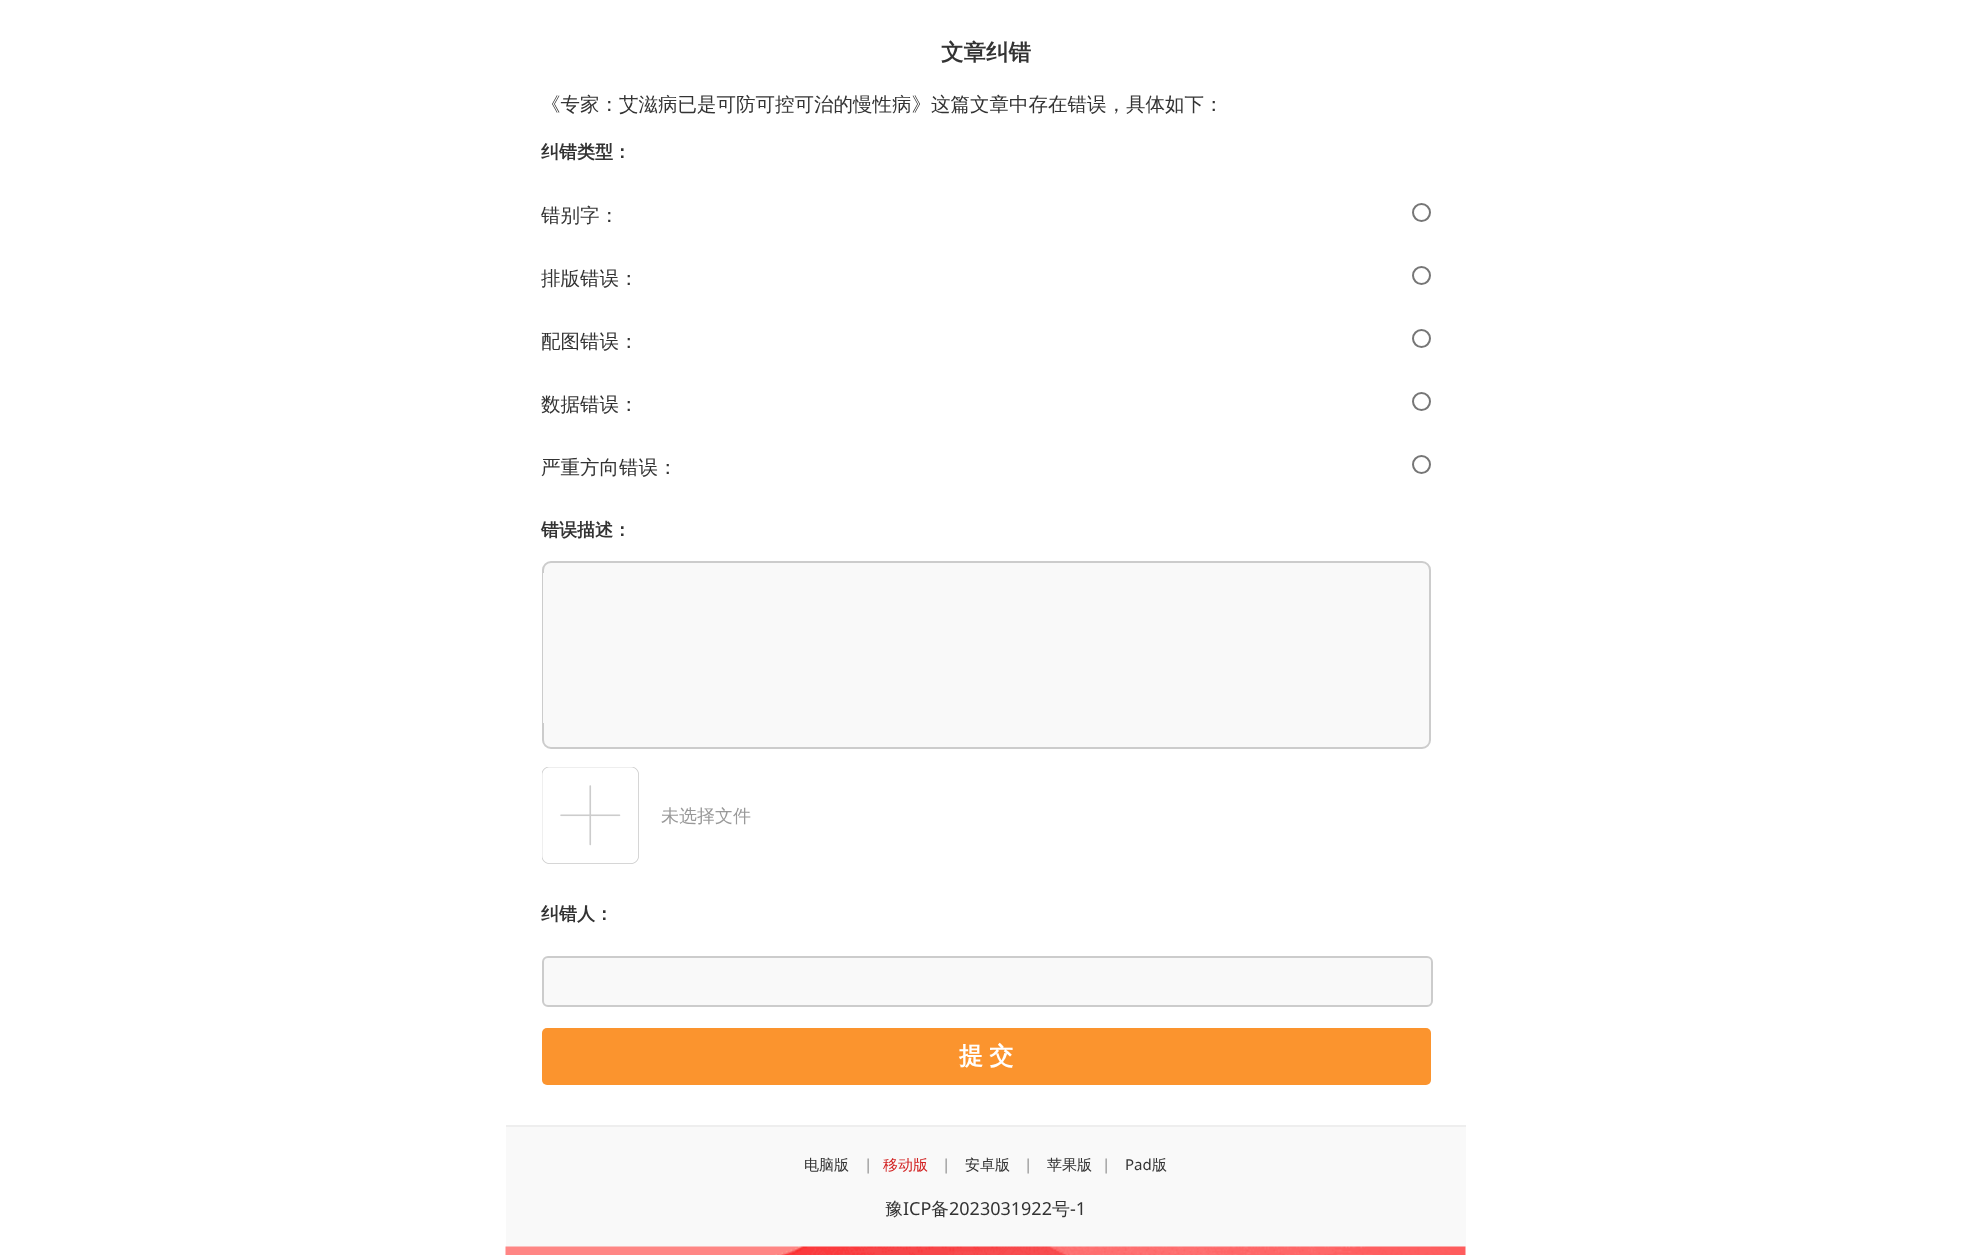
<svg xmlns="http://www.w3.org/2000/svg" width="1971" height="1255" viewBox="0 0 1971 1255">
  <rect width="100%" height="100%" fill="rgb(255,255,255)"/>
  <text x="941" y="60" font-family="WenQuanYi Zen Hei" font-size="22.5" font-weight="bold" fill="rgb(51,51,51)">文章纠错</text>
  <text x="541" y="111" font-family="WenQuanYi Zen Hei" font-size="19.5" font-weight="500" fill="rgb(51,51,51)">《专家：艾滋病已是可防可控可治的慢性病》这篇文章中存在错误，具体如下：</text>
  <text x="541" y="158" font-family="WenQuanYi Zen Hei" font-size="18" font-weight="bold" fill="rgb(51,51,51)">纠错类型：</text>
  <text x="541" y="222" font-family="WenQuanYi Zen Hei" font-size="19.5" font-weight="500" fill="rgb(51,51,51)">错别字：</text>
  <circle cx="1421.5" cy="212.5" r="8.5" fill="none" stroke="rgb(118,118,118)" stroke-width="2"/>
  <text x="541" y="285" font-family="WenQuanYi Zen Hei" font-size="19.5" font-weight="500" fill="rgb(51,51,51)">排版错误：</text>
  <circle cx="1421.5" cy="275.5" r="8.5" fill="none" stroke="rgb(118,118,118)" stroke-width="2"/>
  <text x="541" y="348" font-family="WenQuanYi Zen Hei" font-size="19.5" font-weight="500" fill="rgb(51,51,51)">配图错误：</text>
  <circle cx="1421.5" cy="338.5" r="8.5" fill="none" stroke="rgb(118,118,118)" stroke-width="2"/>
  <text x="541" y="411" font-family="WenQuanYi Zen Hei" font-size="19.5" font-weight="500" fill="rgb(51,51,51)">数据错误：</text>
  <circle cx="1421.5" cy="401.5" r="8.5" fill="none" stroke="rgb(118,118,118)" stroke-width="2"/>
  <text x="541" y="474" font-family="WenQuanYi Zen Hei" font-size="19.5" font-weight="500" fill="rgb(51,51,51)">严重方向错误：</text>
  <circle cx="1421.5" cy="464.5" r="8.5" fill="none" stroke="rgb(118,118,118)" stroke-width="2"/>
  <text x="541" y="536" font-family="WenQuanYi Zen Hei" font-size="18" font-weight="bold" fill="rgb(51,51,51)">错误描述：</text>
  <rect x="543" y="562" width="887" height="186" rx="8" fill="rgb(249,249,249)" stroke="rgb(204,204,204)" stroke-width="2"/>
  <rect x="543" y="573" width="1" height="150" fill="rgb(249,249,249)"/>
  <image x="542" y="767" width="97" height="97" href="pic1.png"/>
  <text x="661" y="822" font-family="WenQuanYi Zen Hei" font-size="18" font-weight="500" fill="rgb(153,153,153)">未选择文件</text>
  <text x="541" y="920" font-family="WenQuanYi Zen Hei" font-size="18" font-weight="bold" fill="rgb(51,51,51)">纠错人：</text>
  <rect x="543" y="957" width="889" height="49" rx="5" fill="rgb(249,249,249)" stroke="rgb(204,204,204)" stroke-width="2"/>
  <rect x="542" y="1028" width="889" height="57" rx="5" fill="rgb(251,148,46)"/>
  <text x="959" y="1064" word-spacing="-1" font-family="WenQuanYi Zen Hei" font-size="24" font-weight="bold" fill="rgb(255,255,255)">提 交</text>
  <rect x="506" y="1127" width="960" height="120" fill="rgb(249,249,249)"/>
  <rect x="506" y="1125" width="960" height="2" fill="rgb(238,238,238)"/>
  <text x="804" y="1170" font-family="WenQuanYi Zen Hei" font-size="15" font-weight="500" fill="rgb(51,51,51)">电脑版</text>
  <text x="864" y="1170" font-family="Noto Sans" font-size="15" fill="rgb(139,139,139)">|</text>
  <text x="883" y="1170" font-family="WenQuanYi Zen Hei" font-size="15" font-weight="500" fill="rgb(210,34,34)">移动版</text>
  <text x="942" y="1170" font-family="Noto Sans" font-size="15" fill="rgb(139,139,139)">|</text>
  <text x="965" y="1170" font-family="WenQuanYi Zen Hei" font-size="15" font-weight="500" fill="rgb(51,51,51)">安卓版</text>
  <text x="1024" y="1170" font-family="Noto Sans" font-size="15" fill="rgb(139,139,139)">|</text>
  <text x="1047" y="1170" font-family="WenQuanYi Zen Hei" font-size="15" font-weight="500" fill="rgb(51,51,51)">苹果版</text>
  <text x="1102" y="1170" font-family="Noto Sans" font-size="15" fill="rgb(139,139,139)">|</text>
  <text x="1125" y="1170" font-family="Noto Sans" font-size="15" fill="rgb(51,51,51)">Pad</text>
  <text x="1152" y="1170" font-family="WenQuanYi Zen Hei" font-size="15" font-weight="500" fill="rgb(51,51,51)">版</text>
  <text x="885" y="1215" font-family="WenQuanYi Zen Hei" font-size="18" font-weight="500" fill="rgb(51,51,51)">豫</text>
  <text x="903" y="1215" font-family="Noto Sans" font-size="18" fill="rgb(51,51,51)">ICP</text>
  <text x="931" y="1215" font-family="WenQuanYi Zen Hei" font-size="18" font-weight="500" fill="rgb(51,51,51)">备</text>
  <text x="949" y="1215" font-family="Noto Sans" font-size="18" fill="rgb(51,51,51)">2023031922</text>
  <text x="1052" y="1215" font-family="WenQuanYi Zen Hei" font-size="18" font-weight="500" fill="rgb(51,51,51)">号</text>
  <text x="1070" y="1215" font-family="Noto Sans" font-size="18" fill="rgb(51,51,51)">-1</text>
  <image x="505" y="1246" width="961" height="9" href="pic2.png"/>
</svg>
